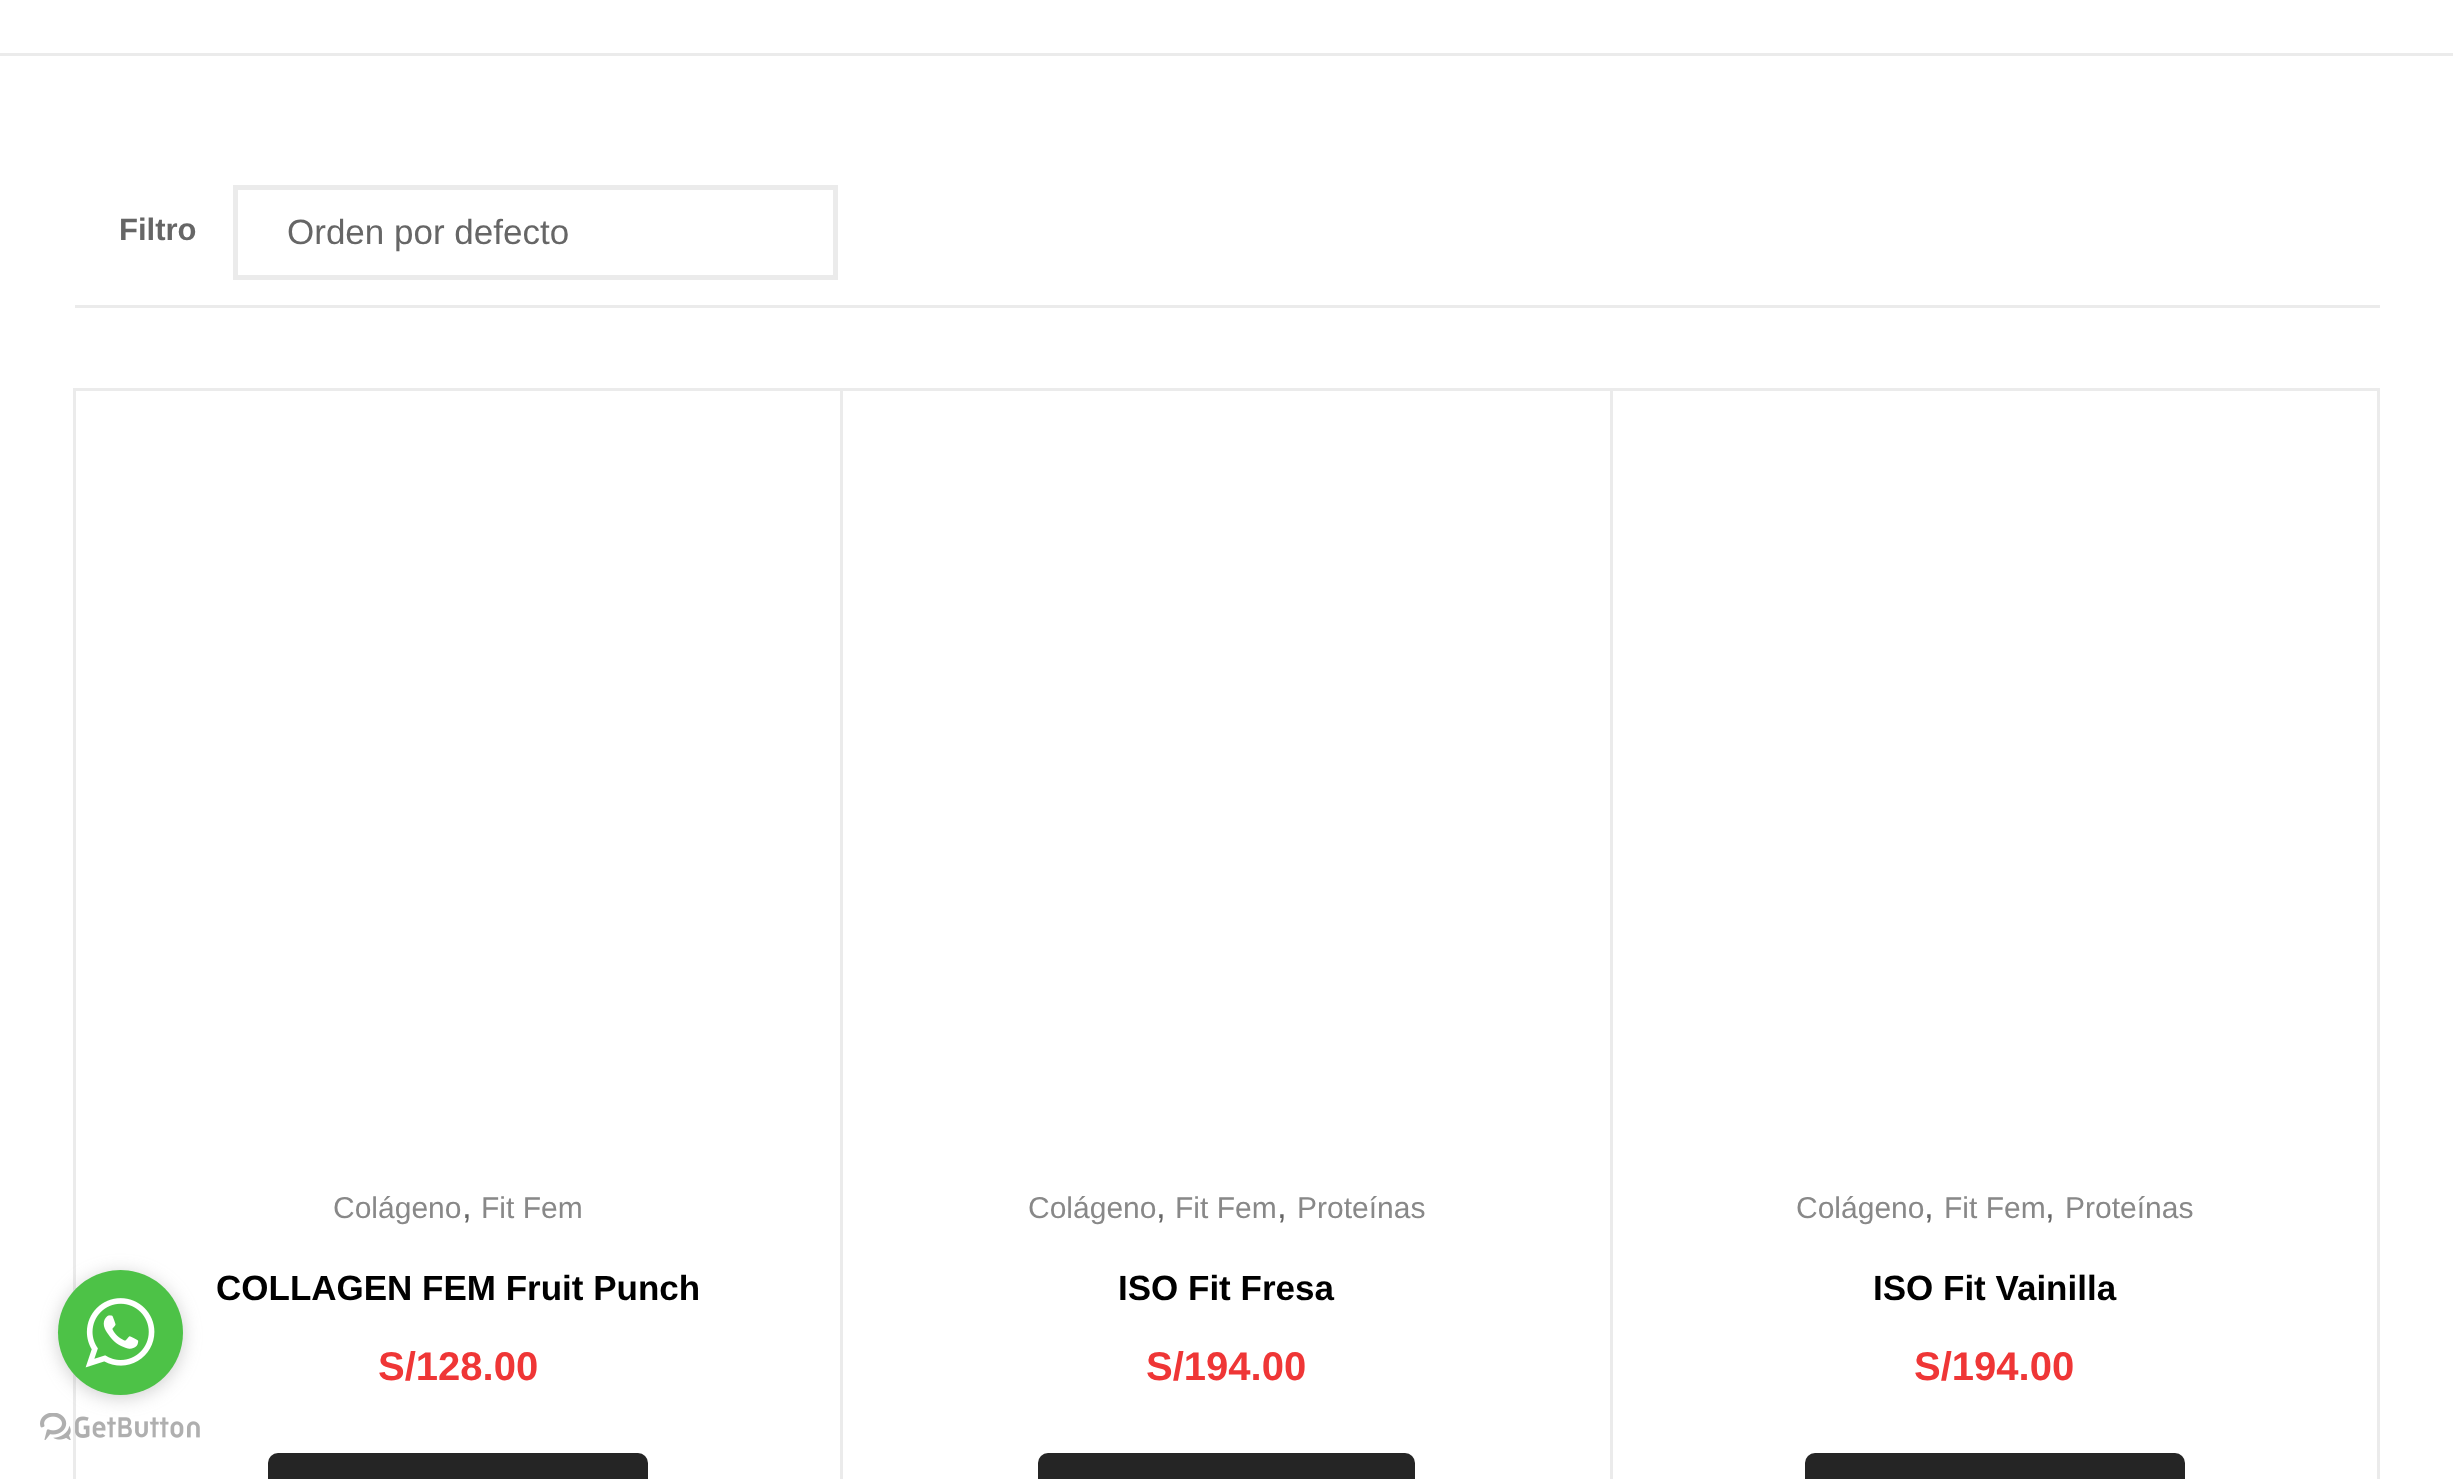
<svg xmlns="http://www.w3.org/2000/svg" width="2453" height="1479" viewBox="0 0 2453 1479">
  <rect width="100%" height="100%" fill="rgb(255,255,255)"/>
  <rect x="0" y="53" width="2453" height="3" fill="rgb(235,235,235)"/>
  <rect x="75" y="305" width="2305" height="3" fill="rgb(235,235,235)"/>
  <text x="119" y="240" font-family="Liberation Sans" font-size="31" font-weight="bold" fill="rgb(102,102,102)">Filtro</text>
  <rect x="235.5" y="187.5" width="600" height="90" fill="none" stroke="rgb(235,235,235)" stroke-width="5"/>
  <text x="287" y="244" font-family="Liberation Sans" font-size="35" fill="rgb(102,102,102)">Orden por defecto</text>
  <rect x="74.5" y="389.5" width="767" height="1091" fill="none" stroke="rgb(235,235,235)" stroke-width="3"/>
  <text x="333" y="1218" font-family="Liberation Sans" font-size="30" fill="rgb(136,136,136)">Colágeno</text>
  <text x="462" y="1218" font-family="Liberation Sans" font-size="35" fill="rgb(102,102,102)">,</text>
  <text x="481" y="1218" font-family="Liberation Sans" font-size="30" fill="rgb(136,136,136)">Fit Fem</text>
  <text x="216" y="1300" font-family="Liberation Sans" font-size="35" font-weight="bold" fill="rgb(0,0,0)">COLLAGEN FEM Fruit Punch</text>
  <text x="378" y="1380" font-family="Liberation Sans" font-size="40" font-weight="bold" fill="rgb(239,54,54)">S/128.00</text>
  <rect x="268" y="1453" width="380" height="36" rx="10" fill="rgb(37,37,37)"/>
  <rect x="841.5" y="389.5" width="770" height="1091" fill="none" stroke="rgb(235,235,235)" stroke-width="3"/>
  <text x="1028" y="1218" font-family="Liberation Sans" font-size="30" fill="rgb(136,136,136)">Colágeno</text>
  <text x="1156" y="1218" font-family="Liberation Sans" font-size="35" fill="rgb(102,102,102)">,</text>
  <text x="1175" y="1218" font-family="Liberation Sans" font-size="30" fill="rgb(136,136,136)">Fit Fem</text>
  <text x="1277" y="1218" font-family="Liberation Sans" font-size="35" fill="rgb(102,102,102)">,</text>
  <text x="1297" y="1218" font-family="Liberation Sans" font-size="30" fill="rgb(136,136,136)">Proteínas</text>
  <text x="1118" y="1300" font-family="Liberation Sans" font-size="35" font-weight="bold" fill="rgb(0,0,0)">ISO Fit Fresa</text>
  <text x="1146" y="1380" font-family="Liberation Sans" font-size="40" font-weight="bold" fill="rgb(239,54,54)">S/194.00</text>
  <rect x="1038" y="1453" width="377" height="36" rx="10" fill="rgb(37,37,37)"/>
  <rect x="1611.5" y="389.5" width="767" height="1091" fill="none" stroke="rgb(235,235,235)" stroke-width="3"/>
  <text x="1796" y="1218" font-family="Liberation Sans" font-size="30" fill="rgb(136,136,136)">Colágeno</text>
  <text x="1924" y="1218" font-family="Liberation Sans" font-size="35" fill="rgb(102,102,102)">,</text>
  <text x="1944" y="1218" font-family="Liberation Sans" font-size="30" fill="rgb(136,136,136)">Fit Fem</text>
  <text x="2045" y="1218" font-family="Liberation Sans" font-size="35" fill="rgb(102,102,102)">,</text>
  <text x="2065" y="1218" font-family="Liberation Sans" font-size="30" fill="rgb(136,136,136)">Proteínas</text>
  <text x="1873" y="1300" font-family="Liberation Sans" font-size="35" font-weight="bold" fill="rgb(0,0,0)">ISO Fit Vainilla</text>
  <text x="1914" y="1380" font-family="Liberation Sans" font-size="40" font-weight="bold" fill="rgb(239,54,54)">S/194.00</text>
  <rect x="1805" y="1453" width="380" height="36" rx="10" fill="rgb(37,37,37)"/>
  <image x="40" y="1413" width="160" height="27" href="pic2.png"/>
  <rect x="58" y="1273" width="125" height="125" rx="62.5" fill="rgba(136,136,136,0.4)" filter="blur(9px)"/>
  <circle cx="120.5" cy="1332.5" r="62.5" fill="rgb(77,194,71)"/>
  <image x="85" y="1298" width="70" height="70" href="pic1.png"/>
</svg>
